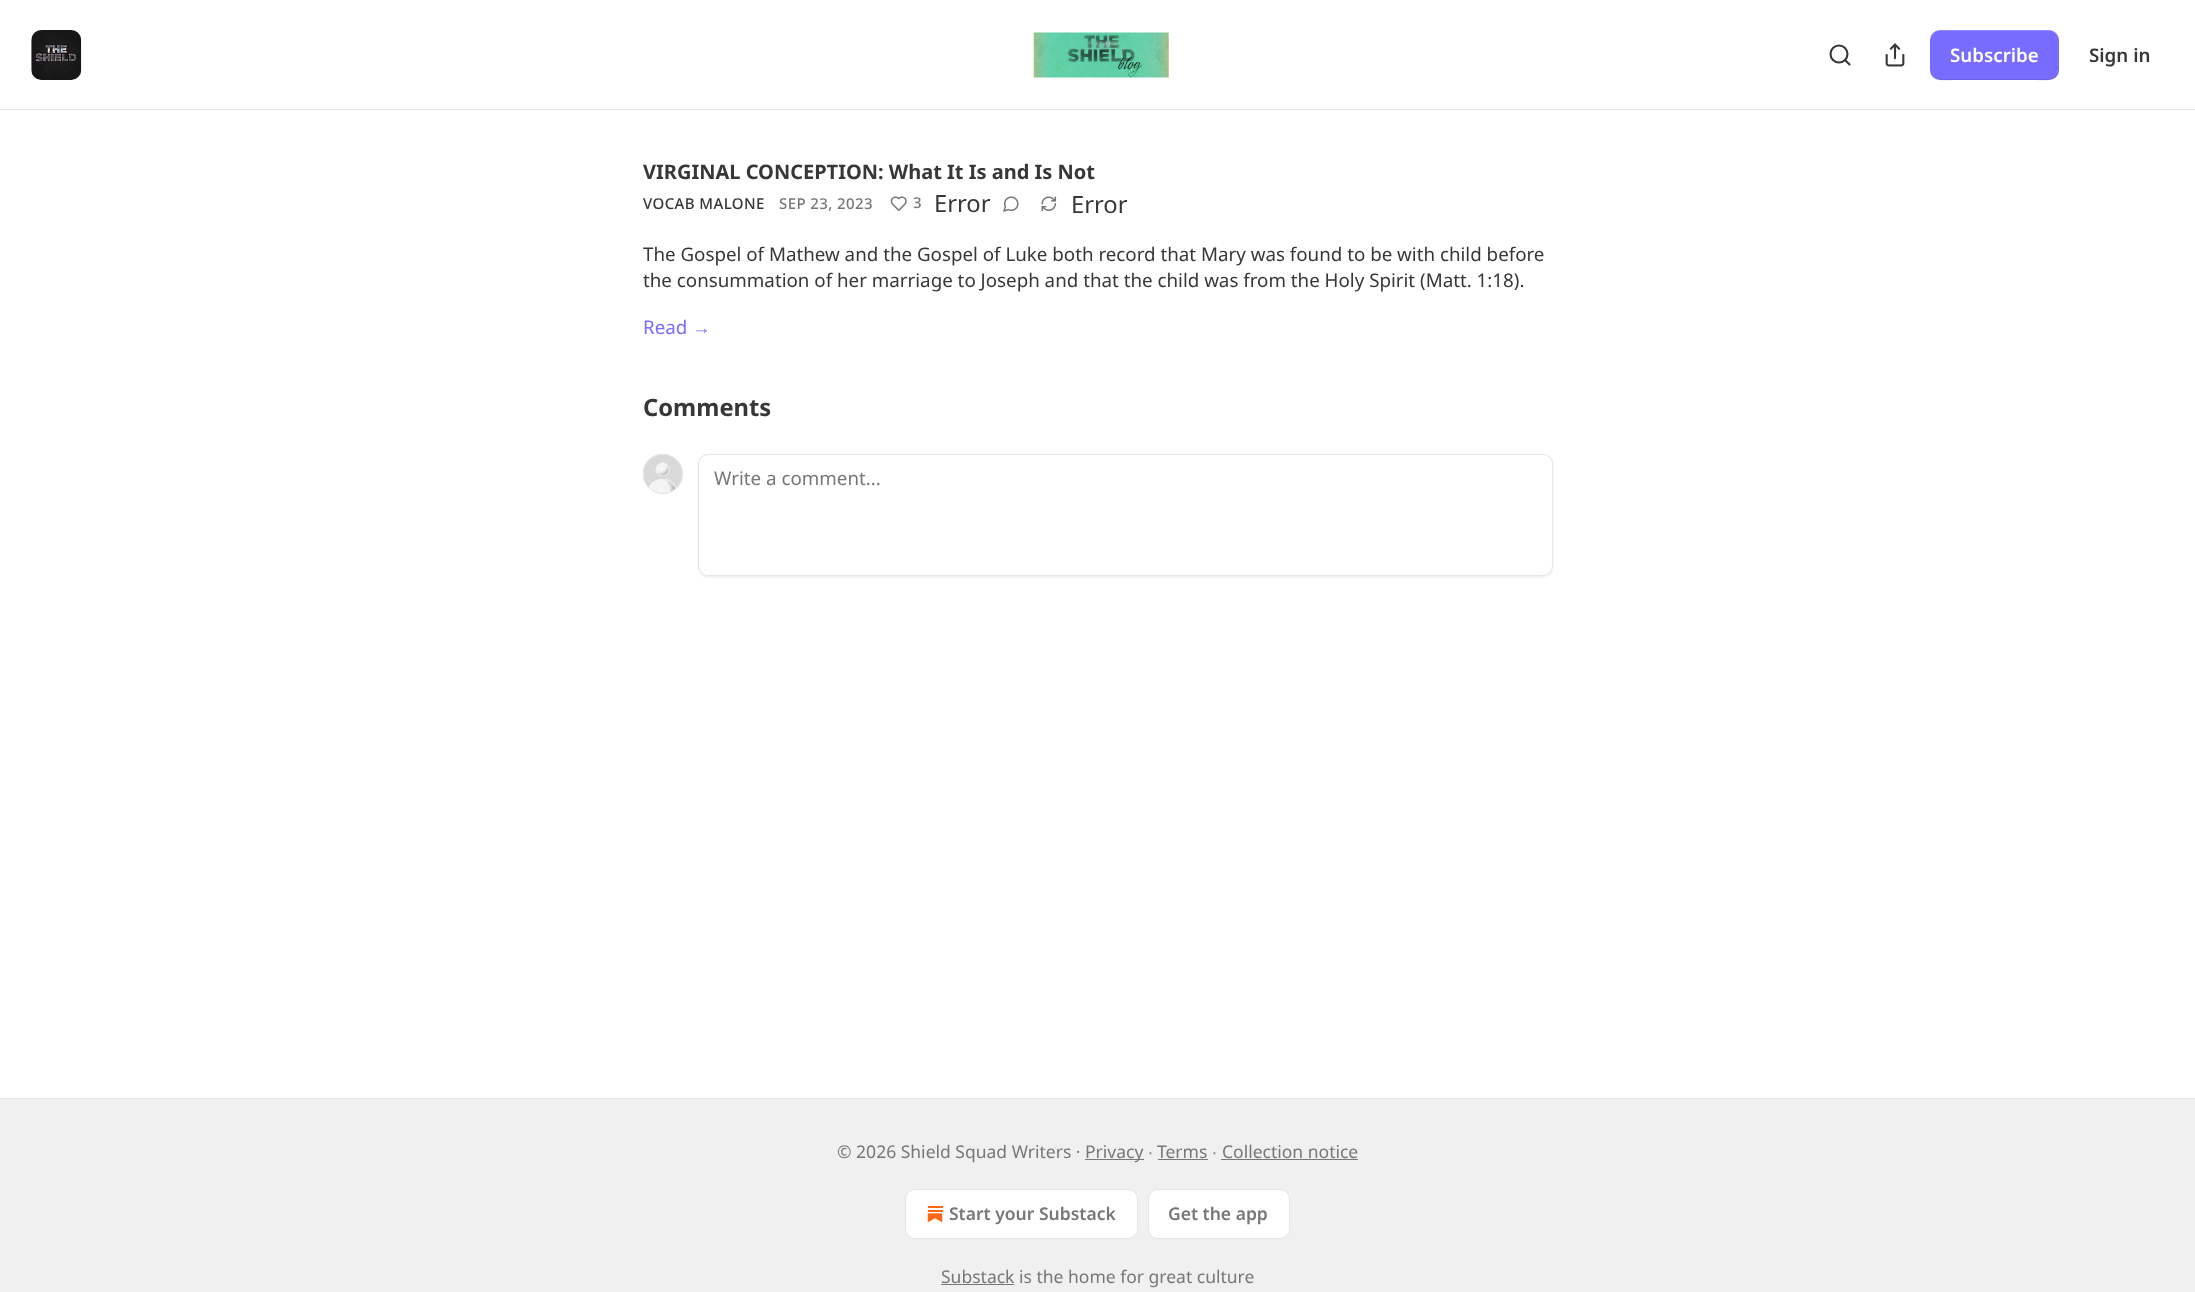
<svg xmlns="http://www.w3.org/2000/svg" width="2195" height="1292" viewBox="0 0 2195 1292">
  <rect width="100%" height="100%" fill="rgb(255,255,255)"/>
  <rect x="0" y="109" width="2195" height="1" fill="rgb(230,230,230)"/>
  <image x="31" y="30" width="51" height="50" href="pic1.png"/>
  <image x="1033" y="32" width="136" height="46" href="pic2.png"/>
  <circle cx="1839" cy="54" r="8.5" fill="none" stroke="rgb(54,55,55)" stroke-width="2.1"/>
  <path d="M1849.5 64.5L1845 60" fill="none" stroke="rgb(54,55,55)" stroke-width="2.1" stroke-linecap="round" stroke-linejoin="round"/>
  <image x="1885" y="43" width="20" height="24" href="pic3.png"/>
  <rect x="1930" y="30" width="129" height="50" rx="10" fill="rgb(120,108,255)"/>
  <path d="M1930 69C1930 84 1948 80 1958 80H2031C2041 80 2059 84 2059 69C2059 74 2054 79 2049 79H1940C1934 79 1930 74 1930 69Z" fill="rgba(0,0,0,0.1)"/>
  <path d="M1940 31H2049C2054 31 2059 36 2059 41C2059 26 2041 30 2031 30H1958C1948 30 1930 26 1930 41C1930 36 1934 31 1940 31Z" fill="rgba(255,255,255,0.2)"/>
  <text x="1950" y="62" font-family="Noto Sans" font-size="18.75" font-weight="600" fill="rgb(255,255,255)">Subscribe</text>
  <text x="2089" y="62" font-family="Noto Sans" font-size="18.75" font-weight="600" fill="rgb(54,55,55)">Sign in</text>
  <text x="643" y="179" font-family="Noto Sans" font-size="20" font-weight="bold" fill="rgb(54,55,55)">VIRGINAL CONCEPTION: What It Is and Is Not</text>
  <text x="643" y="209" font-family="Noto Sans" font-size="15" font-weight="500" letter-spacing="0.4" fill="rgb(54,55,55)">VOCAB MALONE</text>
  <text x="779" y="209" font-family="Noto Sans" font-size="15" font-weight="500" letter-spacing="0.4" fill="rgb(119,119,119)">SEP 23, 2023</text>
  <image x="890" y="196" width="17" height="15" href="pic4.png"/>
  <text x="913" y="208" font-family="Noto Sans" font-size="15" font-weight="500" letter-spacing="0.4" fill="rgb(119,119,119)">3</text>
  <text x="934" y="212" font-family="Noto Sans" font-size="23.75" fill="rgb(54,55,55)">Error</text>
  <image x="1003" y="196" width="16" height="16" href="pic5.png"/>
  <image x="1041" y="196" width="16" height="15" href="pic6.png"/>
  <text x="1071" y="213" font-family="Noto Sans" font-size="23.75" fill="rgb(54,55,55)">Error</text>
  <g font-family="Noto Sans" font-size="18.75" fill="rgb(54,55,55)">
    <text>
      <tspan x="643" y="261">The Gospel of Mathew and the Gospel of Luke both record that Mary was found to be with child before</tspan>
      <tspan x="643" y="287">the consummation of her marriage to Joseph and that the child was from the Holy Spirit (Matt. 1:18).</tspan>
    </text>
  </g>
  <text x="643" y="334" font-family="Noto Sans" font-size="18.75" fill="rgb(120,108,255)">Read</text>
  <text x="692" y="334" font-family="Liberation Sans" font-size="18.75" fill="rgb(120,108,255)">→</text>
  <text x="643" y="416" font-family="Noto Sans" font-size="23.75" font-weight="bold" fill="rgb(54,55,55)">Comments</text>
  <circle cx="663" cy="474" r="19.5" fill="none" stroke="rgb(230,230,230)"/>
  <image x="643" y="454" width="39" height="39" href="pic7.png"/>
  <circle cx="663" cy="474" r="19.5" fill="none" stroke="rgb(230,230,230)"/>
  <rect x="698" y="455" width="855" height="123" rx="10" fill="rgba(0,0,0,0.05)" filter="blur(1px)"/>
  <rect x="698.5" y="454.5" width="854" height="121" rx="9.5" fill="rgb(255,255,255)" stroke="rgb(230,230,230)"/>
  <text x="714" y="485" font-family="Noto Sans" font-size="18.75" fill="rgb(119,119,119)">Write a comment...</text>
  <rect x="0" y="1099" width="2195" height="193" fill="rgb(240,240,240)"/>
  <rect x="0" y="1098" width="2195" height="1" fill="rgb(230,230,230)"/>
  <text x="837" y="1158" font-family="Noto Sans" font-size="17.5" fill="rgb(119,119,119)">© 2026 Shield Squad Writers ·</text>
  <rect x="1085" y="1159" width="59" height="1" fill="rgb(119,119,119)"/>
  <text x="1085" y="1158" font-family="Noto Sans" font-size="17.5" fill="rgb(119,119,119)">Privacy</text>
  <text x="1148" y="1158" font-family="Liberation Sans" font-size="17.5" fill="rgb(119,119,119)">∙</text>
  <text x="1157" y="1158" font-family="Noto Sans" font-size="17.5" fill="rgb(119,119,119)">Terms</text>
  <rect x="1158" y="1159" width="50" height="1" fill="rgb(119,119,119)"/>
  <text x="1212" y="1158" font-family="Liberation Sans" font-size="17.5" fill="rgb(119,119,119)">∙</text>
  <text x="1222" y="1158" font-family="Noto Sans" font-size="17.5" fill="rgb(119,119,119)">Collection notice</text>
  <rect x="1221" y="1159" width="137" height="1" fill="rgb(119,119,119)"/>
  <rect x="905.5" y="1189.5" width="232" height="49" rx="9.5" fill="rgb(255,255,255)" stroke="rgb(230,230,230)"/>
  <image x="927" y="1206" width="16" height="17" href="pic8.png"/>
  <text x="949" y="1220" font-family="Noto Sans" font-size="17.5" font-weight="600" fill="rgb(119,119,119)">Start your Substack</text>
  <rect x="1148.5" y="1189.5" width="141" height="49" rx="9.5" fill="rgb(255,255,255)" stroke="rgb(230,230,230)"/>
  <text x="1168" y="1220" font-family="Noto Sans" font-size="17.5" font-weight="600" fill="rgb(119,119,119)">Get the app</text>
  <rect x="941" y="1284" width="73" height="1" fill="rgb(119,119,119)"/>
  <text x="941" y="1283" font-family="Noto Sans" font-size="17.5" fill="rgb(119,119,119)">Substack is the home for great culture</text>
</svg>
